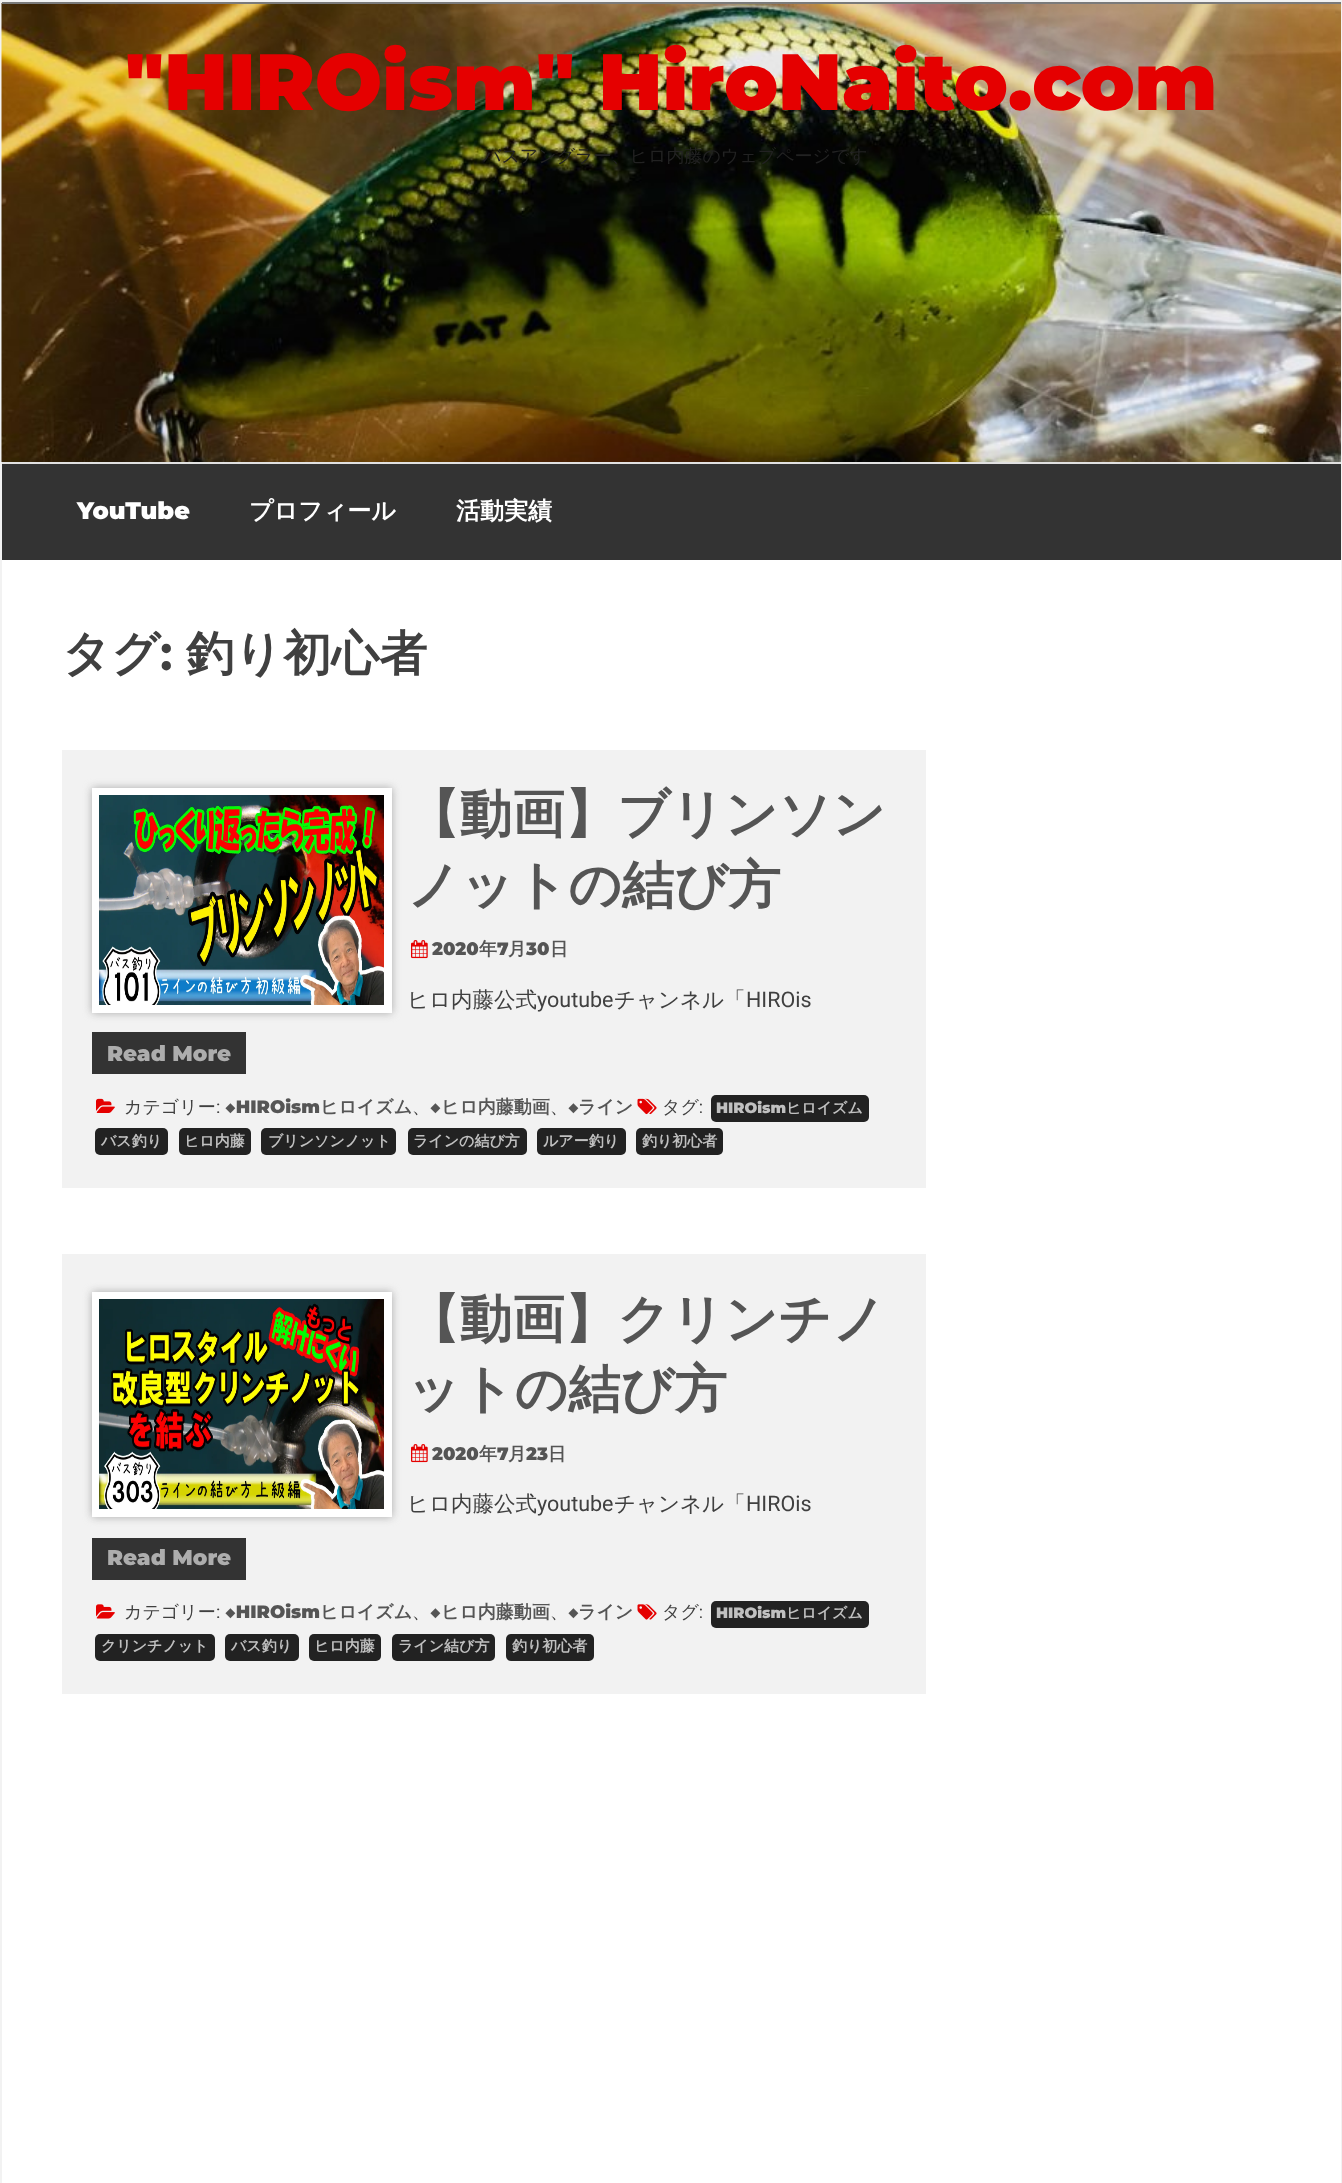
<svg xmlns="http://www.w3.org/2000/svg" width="1342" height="2183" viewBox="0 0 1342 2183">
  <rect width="100%" height="100%" fill="rgb(255,255,255)"/>
  <rect x="1" y="1" width="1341" height="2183" fill="none" stroke="rgb(242,242,242)" stroke-width="2"/>
  <image x="1" y="3" width="1340" height="459" href="pic1.png"/>
  <rect x="2" y="2" width="1339" height="2" fill="rgb(122,122,122)"/>
  <text x="125" y="110" font-family="Montserrat" font-size="79.5" font-weight="900" fill="rgb(229,0,0)">"HIROism" HiroNaito.com</text>
  <text x="483" y="162" font-family="WenQuanYi Zen Hei" font-size="18" font-weight="500" fill="rgb(34,34,34)">バスアングラー、ヒロ内藤のウェブページです</text>
  <rect x="2" y="464" width="1339" height="96" fill="rgb(51,51,51)"/>
  <rect x="2" y="462" width="1339" height="2" fill="rgb(225,225,225)"/>
  <text x="77" y="519" font-family="Montserrat" font-size="24" font-weight="900" fill="rgb(255,255,255)">YouTube</text>
  <g font-family="WenQuanYi Zen Hei" font-size="24" font-weight="bold" fill="rgb(255,255,255)">
    <text x="249" y="519">プロフィール</text>
    <text x="456" y="519">活動実績</text>
  </g>
  <text x="62" y="670" font-family="WenQuanYi Zen Hei" font-size="48" font-weight="bold" fill="rgb(64,64,64)">タグ</text>
  <text x="160" y="670" font-family="Montserrat" font-size="48" font-weight="bold" fill="rgb(64,64,64)">:</text>
  <text x="186" y="670" font-family="WenQuanYi Zen Hei" font-size="48" font-weight="bold" fill="rgb(64,64,64)">釣り初心者</text>
  <rect x="62" y="750" width="864" height="438" fill="rgb(242,242,242)"/>
  <rect x="92" y="788" width="300" height="225" fill="rgb(170,170,170)" filter="blur(4px)"/>
  <rect x="96" y="792" width="292" height="217" fill="none" stroke="rgb(255,255,255)" stroke-width="8"/>
  <image x="99" y="795" width="285" height="210" href="pic2.png"/>
  <g font-family="WenQuanYi Zen Hei" font-size="52.5" font-weight="bold" fill="rgb(85,85,85)">
    <text>
      <tspan x="407" y="832">【動画】ブリンソン</tspan>
      <tspan x="407" y="903">ノットの結び方</tspan>
    </text>
  </g>
  <image x="411" y="940" width="17" height="19" href="pic3.png"/>
  <text x="432" y="955" font-family="Montserrat" font-size="18" font-weight="900" fill="rgb(85,85,85)">2020</text>
  <text x="479" y="955" font-family="WenQuanYi Zen Hei" font-size="18" font-weight="bold" fill="rgb(85,85,85)">年</text>
  <text x="497" y="955" font-family="Montserrat" font-size="18" font-weight="900" fill="rgb(85,85,85)">7</text>
  <text x="508" y="955" font-family="WenQuanYi Zen Hei" font-size="18" font-weight="bold" fill="rgb(85,85,85)">月</text>
  <text x="526" y="955" font-family="Montserrat" font-size="18" font-weight="900" fill="rgb(85,85,85)">30</text>
  <text x="550" y="955" font-family="WenQuanYi Zen Hei" font-size="18" font-weight="bold" fill="rgb(85,85,85)">日</text>
  <text x="407" y="1007" font-family="WenQuanYi Zen Hei" font-size="21.5" font-weight="500" fill="rgb(64,64,64)">ヒロ内藤公式</text>
  <text x="537" y="1007" font-family="Roboto" font-size="21.5" fill="rgb(64,64,64)">youtube</text>
  <text x="614" y="1007" font-family="WenQuanYi Zen Hei" font-size="21.5" font-weight="500" fill="rgb(64,64,64)">チャンネル「</text>
  <text x="746" y="1007" font-family="Roboto" font-size="21.5" fill="rgb(64,64,64)">HIROis</text>
  <rect x="92" y="1032" width="154" height="42" fill="rgb(51,51,51)"/>
  <text x="107" y="1061" font-family="Montserrat" font-size="21.5" font-weight="900" fill="rgb(173,173,173)">Read More</text>
  <image x="96" y="1098" width="19" height="15" href="pic4.png"/>
  <image x="637" y="1098" width="20" height="17" href="pic5.png"/>
  <text x="662" y="1113" font-family="WenQuanYi Zen Hei" font-size="18" font-weight="500" fill="rgb(64,64,64)">タグ</text>
  <text x="699" y="1113" font-family="Montserrat" font-size="18" fill="rgb(64,64,64)">:</text>
  <rect x="711" y="1095" width="158" height="27" rx="5" fill="rgb(34,34,34)"/>
  <text x="716" y="1113" font-family="Montserrat" font-size="15" font-weight="900" fill="rgb(192,192,192)">HIROism</text>
  <text x="786" y="1113" font-family="WenQuanYi Zen Hei" font-size="15" font-weight="bold" fill="rgb(192,192,192)">ヒロイズム</text>
  <rect x="95" y="1128" width="73" height="27" rx="5" fill="rgb(34,34,34)"/>
  <text x="101" y="1146" font-family="WenQuanYi Zen Hei" font-size="15" font-weight="bold" fill="rgb(192,192,192)">バス釣り</text>
  <rect x="179" y="1128" width="72" height="27" rx="5" fill="rgb(34,34,34)"/>
  <text x="184" y="1146" font-family="WenQuanYi Zen Hei" font-size="15" font-weight="bold" fill="rgb(192,192,192)">ヒロ内藤</text>
  <rect x="261" y="1128" width="135" height="27" rx="5" fill="rgb(34,34,34)"/>
  <text x="268" y="1146" font-family="WenQuanYi Zen Hei" font-size="15" font-weight="bold" fill="rgb(192,192,192)">ブリンソンノット</text>
  <rect x="408" y="1128" width="119" height="27" rx="5" fill="rgb(34,34,34)"/>
  <text x="413" y="1146" font-family="WenQuanYi Zen Hei" font-size="15" font-weight="bold" fill="rgb(192,192,192)">ラインの結び方</text>
  <rect x="537" y="1128" width="89" height="27" rx="5" fill="rgb(34,34,34)"/>
  <text x="543" y="1146" font-family="WenQuanYi Zen Hei" font-size="15" font-weight="bold" fill="rgb(192,192,192)">ルアー釣り</text>
  <rect x="636" y="1128" width="87" height="27" rx="5" fill="rgb(34,34,34)"/>
  <text x="642" y="1146" font-family="WenQuanYi Zen Hei" font-size="15" font-weight="bold" fill="rgb(192,192,192)">釣り初心者</text>
  <text x="124" y="1113" font-family="WenQuanYi Zen Hei" font-size="18" font-weight="500" fill="rgb(64,64,64)">カテゴリー</text>
  <text x="216" y="1113" font-family="Roboto" font-size="18" fill="rgb(64,64,64)">:</text>
  <text x="225" y="1113" font-family="Montserrat" font-size="18" font-weight="900" fill="rgb(85,85,85)">◆HIROism</text>
  <text x="320" y="1113" font-family="WenQuanYi Zen Hei" font-size="18" font-weight="bold" fill="rgb(85,85,85)">ヒロイズム</text>
  <text x="412" y="1113" font-family="WenQuanYi Zen Hei" font-size="18" font-weight="500" fill="rgb(64,64,64)">、</text>
  <text x="430" y="1113" font-family="Montserrat" font-size="18" font-weight="900" fill="rgb(85,85,85)">◆</text>
  <text x="441" y="1113" font-family="WenQuanYi Zen Hei" font-size="18" font-weight="bold" fill="rgb(85,85,85)">ヒロ内藤動画</text>
  <text x="550" y="1113" font-family="WenQuanYi Zen Hei" font-size="18" font-weight="500" fill="rgb(64,64,64)">、</text>
  <text x="568" y="1113" font-family="Montserrat" font-size="18" font-weight="900" fill="rgb(85,85,85)">◆</text>
  <text x="578" y="1113" font-family="WenQuanYi Zen Hei" font-size="18" font-weight="bold" fill="rgb(85,85,85)">ライン</text>
  <rect x="62" y="1254" width="864" height="440" fill="rgb(242,242,242)"/>
  <rect x="92" y="1292" width="300" height="225" fill="rgb(170,170,170)" filter="blur(4px)"/>
  <rect x="96" y="1296" width="292" height="217" fill="none" stroke="rgb(255,255,255)" stroke-width="8"/>
  <image x="99" y="1299" width="285" height="210" href="pic6.png"/>
  <g font-family="WenQuanYi Zen Hei" font-size="52.5" font-weight="bold" fill="rgb(85,85,85)">
    <text>
      <tspan x="407" y="1337">【動画】クリンチノ</tspan>
      <tspan x="407" y="1407">ットの結び方</tspan>
    </text>
  </g>
  <image x="411" y="1444" width="17" height="19" href="pic3.png"/>
  <text x="432" y="1460" font-family="Montserrat" font-size="18" font-weight="900" fill="rgb(85,85,85)">2020</text>
  <text x="479" y="1460" font-family="WenQuanYi Zen Hei" font-size="18" font-weight="bold" fill="rgb(85,85,85)">年</text>
  <text x="497" y="1460" font-family="Montserrat" font-size="18" font-weight="900" fill="rgb(85,85,85)">7</text>
  <text x="508" y="1460" font-family="WenQuanYi Zen Hei" font-size="18" font-weight="bold" fill="rgb(85,85,85)">月</text>
  <text x="526" y="1460" font-family="Montserrat" font-size="18" font-weight="900" fill="rgb(85,85,85)">23</text>
  <text x="548" y="1460" font-family="WenQuanYi Zen Hei" font-size="18" font-weight="bold" fill="rgb(85,85,85)">日</text>
  <text x="407" y="1511" font-family="WenQuanYi Zen Hei" font-size="21.5" font-weight="500" fill="rgb(64,64,64)">ヒロ内藤公式</text>
  <text x="537" y="1511" font-family="Roboto" font-size="21.5" fill="rgb(64,64,64)">youtube</text>
  <text x="614" y="1511" font-family="WenQuanYi Zen Hei" font-size="21.5" font-weight="500" fill="rgb(64,64,64)">チャンネル「</text>
  <text x="746" y="1511" font-family="Roboto" font-size="21.5" fill="rgb(64,64,64)">HIROis</text>
  <rect x="92" y="1538" width="154" height="42" fill="rgb(51,51,51)"/>
  <text x="107" y="1565" font-family="Montserrat" font-size="21.5" font-weight="900" fill="rgb(173,173,173)">Read More</text>
  <image x="637" y="1604" width="20" height="16" href="pic7.png"/>
  <text x="662" y="1618" font-family="WenQuanYi Zen Hei" font-size="18" font-weight="500" fill="rgb(64,64,64)">タグ</text>
  <text x="699" y="1618" font-family="Montserrat" font-size="18" fill="rgb(64,64,64)">:</text>
  <rect x="711" y="1601" width="158" height="27" rx="5" fill="rgb(34,34,34)"/>
  <text x="716" y="1618" font-family="Montserrat" font-size="15" font-weight="900" fill="rgb(192,192,192)">HIROism</text>
  <text x="786" y="1618" font-family="WenQuanYi Zen Hei" font-size="15" font-weight="bold" fill="rgb(192,192,192)">ヒロイズム</text>
  <rect x="95" y="1634" width="120" height="27" rx="5" fill="rgb(34,34,34)"/>
  <text x="101" y="1651" font-family="WenQuanYi Zen Hei" font-size="15" font-weight="bold" fill="rgb(192,192,192)">クリンチノット</text>
  <rect x="225" y="1634" width="74" height="27" rx="5" fill="rgb(34,34,34)"/>
  <text x="231" y="1651" font-family="WenQuanYi Zen Hei" font-size="15" font-weight="bold" fill="rgb(192,192,192)">バス釣り</text>
  <rect x="309" y="1634" width="72" height="27" rx="5" fill="rgb(34,34,34)"/>
  <text x="314" y="1651" font-family="WenQuanYi Zen Hei" font-size="15" font-weight="bold" fill="rgb(192,192,192)">ヒロ内藤</text>
  <rect x="392" y="1634" width="103" height="27" rx="5" fill="rgb(34,34,34)"/>
  <text x="398" y="1651" font-family="WenQuanYi Zen Hei" font-size="15" font-weight="bold" fill="rgb(192,192,192)">ライン結び方</text>
  <rect x="506" y="1634" width="88" height="27" rx="5" fill="rgb(34,34,34)"/>
  <text x="512" y="1651" font-family="WenQuanYi Zen Hei" font-size="15" font-weight="bold" fill="rgb(192,192,192)">釣り初心者</text>
  <image x="96" y="1604" width="19" height="15" href="pic8.png"/>
  <text x="124" y="1618" font-family="WenQuanYi Zen Hei" font-size="18" font-weight="500" fill="rgb(64,64,64)">カテゴリー</text>
  <text x="216" y="1618" font-family="Roboto" font-size="18" fill="rgb(64,64,64)">:</text>
  <text x="225" y="1618" font-family="Montserrat" font-size="18" font-weight="900" fill="rgb(85,85,85)">◆HIROism</text>
  <text x="320" y="1618" font-family="WenQuanYi Zen Hei" font-size="18" font-weight="bold" fill="rgb(85,85,85)">ヒロイズム</text>
  <text x="412" y="1618" font-family="WenQuanYi Zen Hei" font-size="18" font-weight="500" fill="rgb(64,64,64)">、</text>
  <text x="430" y="1618" font-family="Montserrat" font-size="18" font-weight="900" fill="rgb(85,85,85)">◆</text>
  <text x="441" y="1618" font-family="WenQuanYi Zen Hei" font-size="18" font-weight="bold" fill="rgb(85,85,85)">ヒロ内藤動画</text>
  <text x="550" y="1618" font-family="WenQuanYi Zen Hei" font-size="18" font-weight="500" fill="rgb(64,64,64)">、</text>
  <text x="568" y="1618" font-family="Montserrat" font-size="18" font-weight="900" fill="rgb(85,85,85)">◆</text>
  <text x="578" y="1618" font-family="WenQuanYi Zen Hei" font-size="18" font-weight="bold" fill="rgb(85,85,85)">ライン</text>
</svg>
